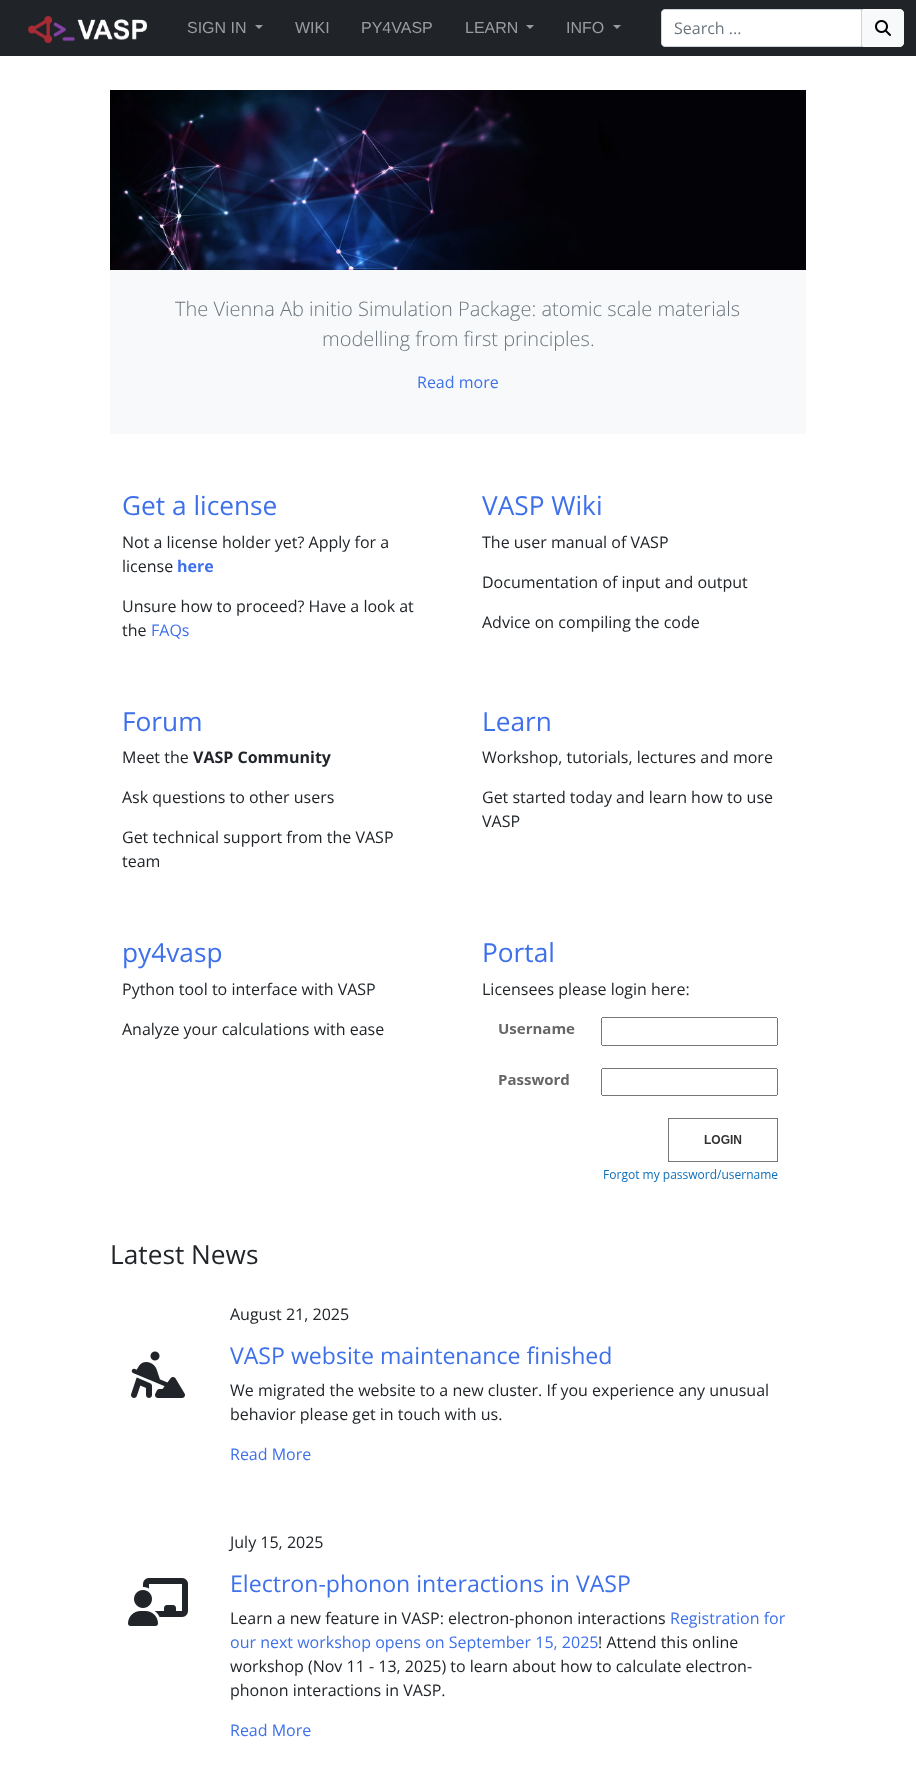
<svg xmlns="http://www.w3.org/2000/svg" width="916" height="1786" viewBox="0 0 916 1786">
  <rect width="100%" height="100%" fill="rgb(255,255,255)"/>
  <rect x="0" y="0" width="916" height="56" fill="rgb(32,36,41)"/>
  <image x="28" y="16" width="119" height="28" href="pic1.png"/>
  <text x="187" y="33" font-family="Liberation Sans" font-size="16" fill="rgb(155,156,159)">SIGN IN</text>
  <path d="M255 25H263L259 29Z" fill="rgb(155,156,159)"/>
  <g font-family="Liberation Sans" font-size="16" fill="rgb(155,156,159)">
    <text x="295" y="33">WIKI</text>
    <text x="361" y="33">PY4VASP</text>
    <text x="465" y="33">LEARN</text>
  </g>
  <path d="M526 25H534L530 29Z" fill="rgb(155,156,159)"/>
  <text x="566" y="33" font-family="Liberation Sans" font-size="16" fill="rgb(155,156,159)">INFO</text>
  <path d="M613 25H621L617 29Z" fill="rgb(155,156,159)"/>
  <path d="M665 9.5H861.5V46.5H665C663 46.5 661.5 45 661.5 43V13C661.5 11 663 9.5 665 9.5Z" fill="rgb(255,255,255)" stroke="rgb(206,212,218)"/>
  <text x="674" y="34" font-family="Open Sans" font-size="16" fill="rgb(108,117,125)">Search ...</text>
  <path d="M862.5 9.5H900C902 9.5 903.5 11 903.5 13V43C903.5 45 902 46.5 900 46.5H862.5Z" fill="rgb(248,249,250)" stroke="rgb(248,249,250)"/>
  <image x="875" y="20" width="16" height="16" href="pic2.png"/>
  <image x="110" y="90" width="696" height="180" href="pic3.png"/>
  <rect x="110" y="270" width="696" height="164" fill="rgb(248,249,250)"/>
  <g font-family="Open Sans" font-size="20" font-weight="300" fill="rgb(108,117,125)">
    <text x="175" y="316">The Vienna Ab initio Simulation Package: atomic scale materials</text>
    <text x="322" y="346">modelling from first principles.</text>
  </g>
  <text x="417" y="388" font-family="Open Sans" font-size="16" fill="rgb(62,112,234)">Read more</text>
  <text x="122" y="515" font-family="Open Sans" font-size="26.25" fill="rgb(62,112,234)">Get a license</text>
  <g font-family="Open Sans" font-size="16" fill="rgb(33,37,41)">
    <text>
      <tspan x="122" y="548">Not a license holder yet? Apply for a</tspan>
      <tspan x="122" y="572">license</tspan>
    </text>
  </g>
  <text x="177" y="572" font-family="Open Sans" font-size="16" font-weight="bold" fill="rgb(62,112,234)">here</text>
  <g font-family="Open Sans" font-size="16" fill="rgb(33,37,41)">
    <text>
      <tspan x="122" y="612">Unsure how to proceed? Have a look at</tspan>
      <tspan x="122" y="636">the</tspan>
    </text>
  </g>
  <text x="151" y="636" font-family="Open Sans" font-size="16" fill="rgb(62,112,234)">FAQs</text>
  <text x="482" y="515" font-family="Open Sans" font-size="26.25" fill="rgb(62,112,234)">VASP Wiki</text>
  <g font-family="Open Sans" font-size="16" fill="rgb(33,37,41)">
    <text x="482" y="548">The user manual of VASP</text>
    <text x="482" y="588">Documentation of input and output</text>
    <text x="482" y="628">Advice on compiling the code</text>
  </g>
  <text x="122" y="731" font-family="Open Sans" font-size="26.25" fill="rgb(62,112,234)">Forum</text>
  <text x="122" y="763" font-family="Open Sans" font-size="16" fill="rgb(33,37,41)">Meet the</text>
  <text x="193" y="763" font-family="Open Sans" font-size="16" font-weight="bold" fill="rgb(33,37,41)">VASP Community</text>
  <g font-family="Open Sans" font-size="16" fill="rgb(33,37,41)">
    <text x="122" y="803">Ask questions to other users</text>
    <text>
      <tspan x="122" y="843">Get technical support from the VASP</tspan>
      <tspan x="122" y="867">team</tspan>
    </text>
  </g>
  <text x="482" y="731" font-family="Open Sans" font-size="26.25" fill="rgb(62,112,234)">Learn</text>
  <g font-family="Open Sans" font-size="16" fill="rgb(33,37,41)">
    <text x="482" y="763">Workshop, tutorials, lectures and more</text>
    <text>
      <tspan x="482" y="803">Get started today and learn how to use</tspan>
      <tspan x="482" y="827">VASP</tspan>
    </text>
  </g>
  <text x="122" y="962" font-family="Open Sans" font-size="26.25" fill="rgb(62,112,234)">py4vasp</text>
  <g font-family="Open Sans" font-size="16" fill="rgb(33,37,41)">
    <text x="122" y="995">Python tool to interface with VASP</text>
    <text x="122" y="1035">Analyze your calculations with ease</text>
  </g>
  <text x="482" y="962" font-family="Open Sans" font-size="26.25" fill="rgb(62,112,234)">Portal</text>
  <text x="482" y="995" font-family="Open Sans" font-size="16" fill="rgb(33,37,41)">Licensees please login here:</text>
  <image x="499" y="1017" width="279" height="165" href="pic4.png"/>
  <text x="110" y="1264" font-family="Open Sans" font-size="26.25" fill="rgb(33,37,41)">Latest News</text>
  <image x="131" y="1351" width="54" height="47" href="pic5.png"/>
  <text x="230" y="1320" font-family="Open Sans" font-size="16" fill="rgb(33,37,41)">August 21, 2025</text>
  <text x="230" y="1364" font-family="Open Sans" font-size="23.1" fill="rgb(62,112,234)">VASP website maintenance finished</text>
  <g font-family="Open Sans" font-size="16" fill="rgb(33,37,41)">
    <text>
      <tspan x="230" y="1396">We migrated the website to a new cluster. If you experience any unusual</tspan>
      <tspan x="230" y="1420">behavior please get in touch with us.</tspan>
    </text>
  </g>
  <text x="230" y="1460" font-family="Open Sans" font-size="16" fill="rgb(62,112,234)">Read More</text>
  <image x="128" y="1578" width="60" height="48" href="pic6.png"/>
  <text x="230" y="1548" font-family="Open Sans" font-size="16" fill="rgb(33,37,41)">July 15, 2025</text>
  <text x="230" y="1592" font-family="Open Sans" font-size="23.1" fill="rgb(62,112,234)">Electron-phonon interactions in VASP</text>
  <text x="230" y="1624" font-family="Open Sans" font-size="16" fill="rgb(33,37,41)">Learn a new feature in VASP: electron-phonon interactions</text>
  <g font-family="Open Sans" font-size="16" fill="rgb(62,112,234)">
    <text x="670" y="1624">Registration for</text>
    <text x="230" y="1648">our next workshop opens on September 15, 2025</text>
  </g>
  <g font-family="Open Sans" font-size="16" fill="rgb(33,37,41)">
    <text x="598" y="1648">! Attend this online</text>
    <text>
      <tspan x="230" y="1672">workshop (Nov 11 - 13, 2025) to learn about how to calculate electron-</tspan>
      <tspan x="230" y="1696">phonon interactions in VASP.</tspan>
    </text>
  </g>
  <text x="230" y="1736" font-family="Open Sans" font-size="16" fill="rgb(62,112,234)">Read More</text>
</svg>
